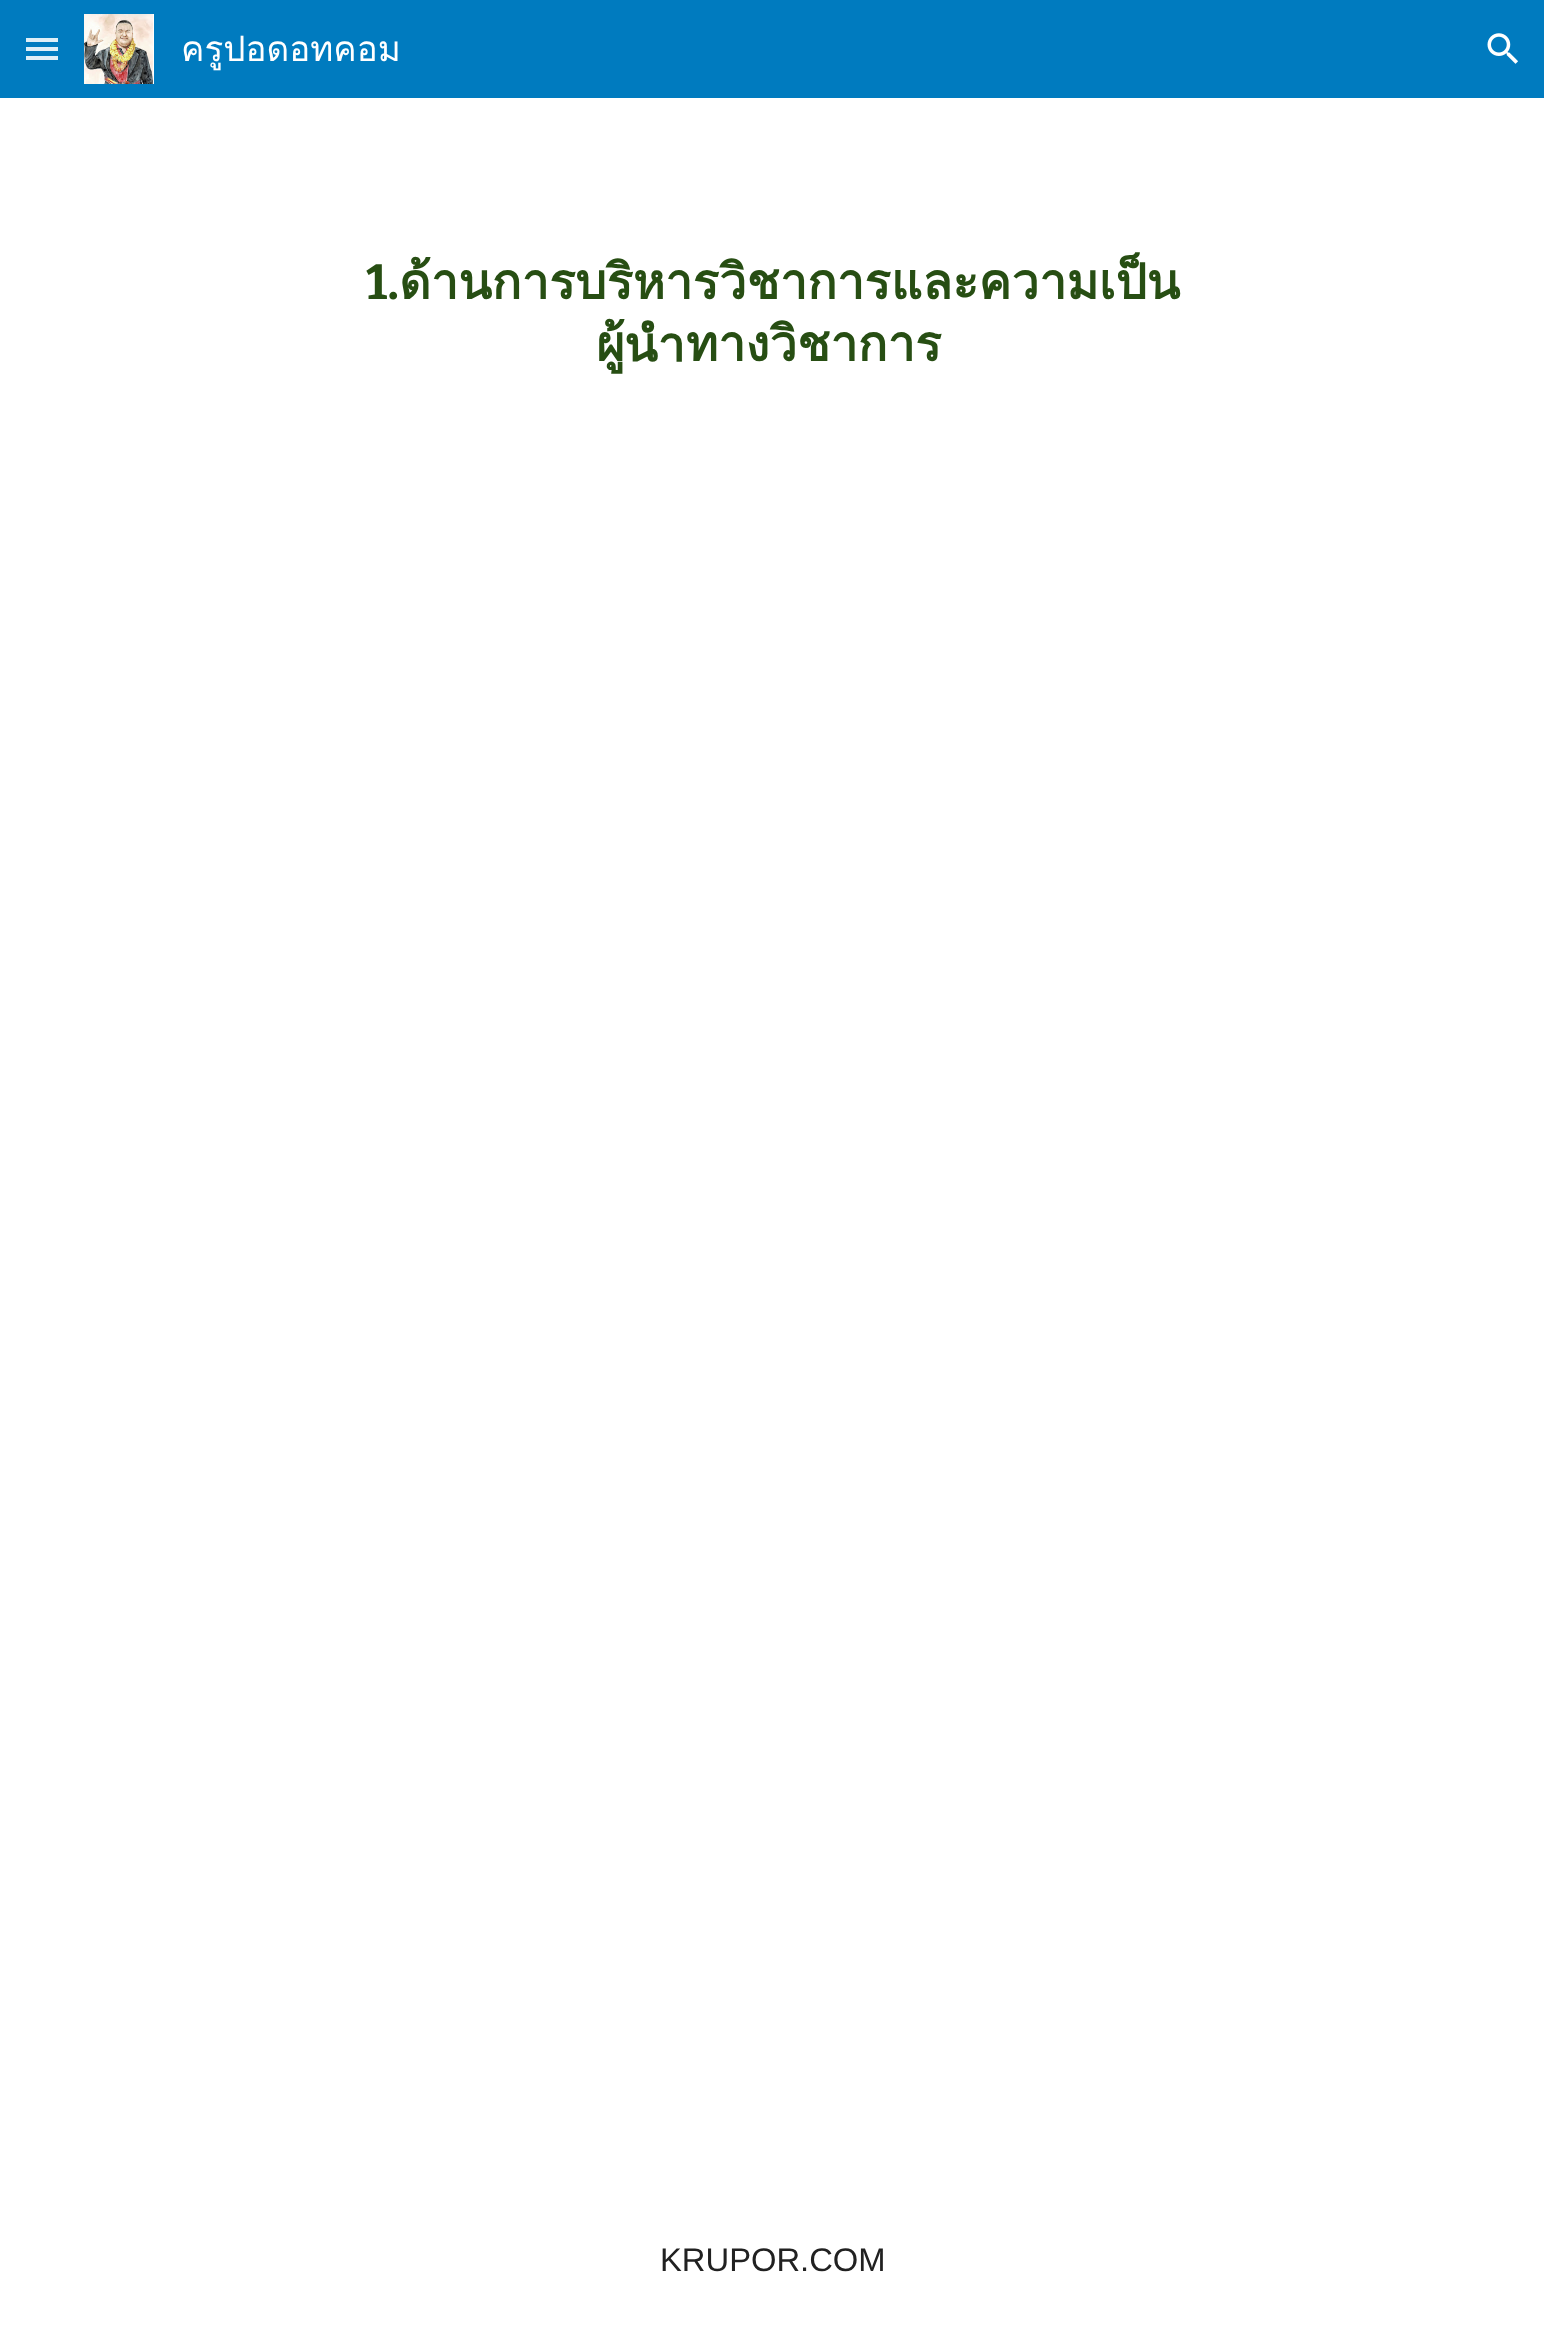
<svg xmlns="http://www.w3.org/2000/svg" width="1544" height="2336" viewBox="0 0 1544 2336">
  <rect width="100%" height="100%" fill="rgb(255,255,255)"/>
  <rect x="0" y="0" width="1544" height="98" fill="rgb(0,123,191)"/>
  <rect x="26" y="38" width="32" height="4" fill="rgb(223,239,247)"/>
  <rect x="26" y="47" width="32" height="4" fill="rgb(223,239,247)"/>
  <rect x="26" y="56" width="32" height="4" fill="rgb(223,239,247)"/>
  <image x="84" y="14" width="70" height="70" href="pic1.png"/>
  <text x="181" y="61" font-family="Loma" font-size="35" fill="rgb(255,255,255)">ครูปอดอทคอม</text>
  <image x="1487" y="33" width="31" height="31" href="pic2.png"/>
  <text x="366" y="299" font-family="Bitter" font-size="49" font-weight="bold" fill="rgb(39,78,19)">1.</text>
  <g font-family="Loma" font-size="49" font-weight="bold" fill="rgb(39,78,19)">
    <text x="399" y="299">ด้านการบริหารวิชาการและความเป็น</text>
    <text x="596" y="361">ผู้นำทางวิชาการ</text>
  </g>
  <text x="660" y="2271" font-family="Liberation Sans" font-size="32.75" fill="rgb(33,33,33)">KRUPOR.COM</text>
</svg>
